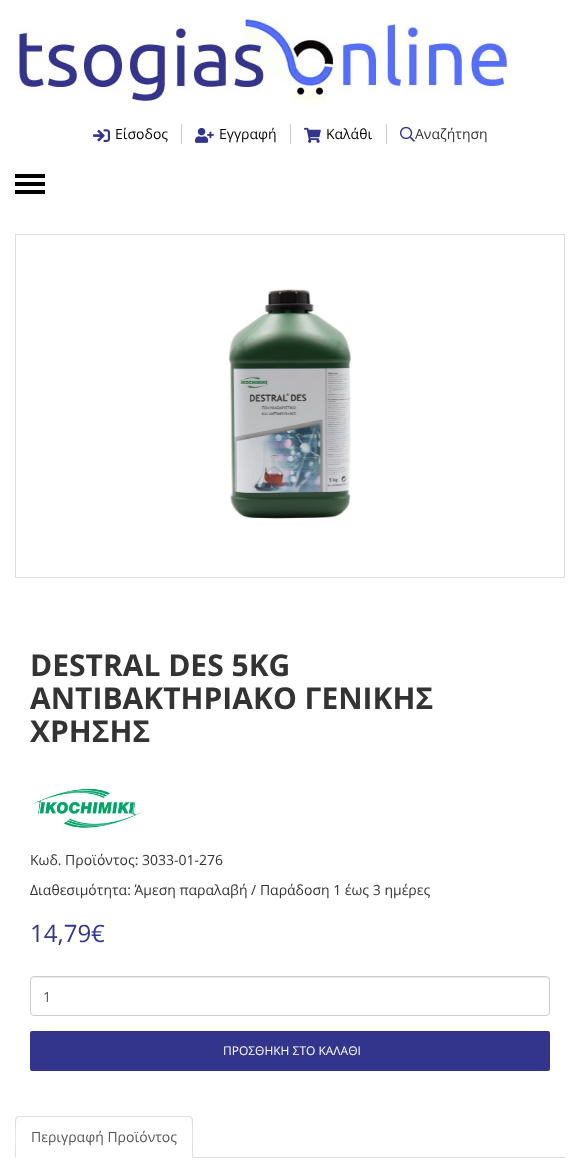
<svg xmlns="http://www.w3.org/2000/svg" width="580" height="1176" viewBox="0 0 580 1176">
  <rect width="100%" height="100%" fill="rgb(255,255,255)"/>
  <image x="15" y="15" width="496" height="89" href="pic1.png"/>
  <image x="93" y="129" width="17" height="13" href="pic2.png"/>
  <text x="115" y="139" font-family="Open Sans" font-size="14" fill="rgb(0,0,0)">Είσοδος</text>
  <rect x="181" y="124" width="1" height="20" fill="rgb(204,204,204)"/>
  <image x="195" y="127" width="19" height="16" href="pic3.png"/>
  <text x="219" y="139" font-family="Open Sans" font-size="14" fill="rgb(0,0,0)">Εγγραφή</text>
  <rect x="290" y="124" width="1" height="20" fill="rgb(204,204,204)"/>
  <image x="304" y="127" width="17" height="16" href="pic4.png"/>
  <text x="326" y="139" font-family="Open Sans" font-size="14" fill="rgb(0,0,0)">Καλάθι</text>
  <rect x="386" y="124" width="1" height="20" fill="rgb(204,204,204)"/>
  <image x="400" y="126" width="15" height="16" href="pic5.png"/>
  <text x="415" y="139" font-family="Open Sans" font-size="14" fill="rgb(51,51,51)">Αναζήτηση</text>
  <rect x="15" y="174" width="30" height="4" fill="rgb(0,0,0)"/>
  <rect x="15" y="182" width="30" height="4" fill="rgb(0,0,0)"/>
  <rect x="15" y="190" width="30" height="4" fill="rgb(0,0,0)"/>
  <rect x="15.5" y="234.5" width="549" height="343" fill="none" stroke="rgb(221,221,221)"/>
  <image x="228" y="289" width="123" height="230" href="pic6.png"/>
  <g font-family="Open Sans" font-size="30" font-weight="bold" fill="rgb(51,51,51)">
    <text>
      <tspan x="30" y="676">DESTRAL DES 5KG</tspan>
      <tspan x="30" y="709">ΑΝΤΙΒΑΚΤΗΡΙΑΚΟ ΓΕΝΙΚΗΣ</tspan>
      <tspan x="30" y="742">ΧΡΗΣΗΣ</tspan>
    </text>
  </g>
  <image x="31" y="788" width="112" height="41" href="pic7.png"/>
  <g font-family="Open Sans" font-size="14" fill="rgb(51,51,51)">
    <text x="30" y="865">Κωδ. Προϊόντος: 3033-01-276</text>
    <text x="30" y="895">Διαθεσιμότητα: Άμεση παραλαβή / Παράδoση 1 έως 3 ημέρες</text>
  </g>
  <text x="30" y="942" font-family="Open Sans" font-size="24" fill="rgb(51,53,140)">14,79€</text>
  <path d="M34 978H546C548 978 549 979 549 981V979L547 977H34C32 977 31 979 31 981C31 979 32 978 34 978Z" fill="rgb(236,236,236)"/>
  <rect x="30.5" y="976.5" width="519" height="39" rx="3.5" fill="none" stroke="rgb(204,204,204)"/>
  <text x="43" y="1002" font-family="Open Sans" font-size="14" fill="rgb(85,85,85)">1</text>
  <rect x="30" y="1031" width="520" height="40" rx="2" fill="rgb(51,53,140)"/>
  <path d="M32 1032H548C549 1032 550 1033 550 1034C550 1033 550 1031 548 1031H32L30 1032V1034C30 1033 31 1032 32 1032Z" fill="rgba(0,0,0,0.07)"/>
  <text x="223" y="1055" font-family="Open Sans" font-size="12" fill="rgb(255,255,255)">ΠΡΟΣΘΗΚΗ ΣΤΟ ΚΑΛΑΘΙ</text>
  <rect x="193" y="1157" width="372" height="1" fill="rgb(221,221,221)"/>
  <path d="M19 1116L16 1117L17 1118L19 1117H189L191 1118L192 1117L189 1116Z" fill="rgb(221,221,221)"/>
  <path d="M193 1158V1120C193 1119 192 1118 192 1117L191 1118C193 1120 192 1152 192 1157Z" fill="rgb(221,221,221)"/>
  <path d="M15 1158L16 1157C16 1152 15 1120 17 1118L16 1117L15 1120Z" fill="rgb(221,221,221)"/>
  <text x="31" y="1142" font-family="Open Sans" font-size="14" fill="rgb(85,85,85)">Περιγραφή Προϊόντος</text>
</svg>
